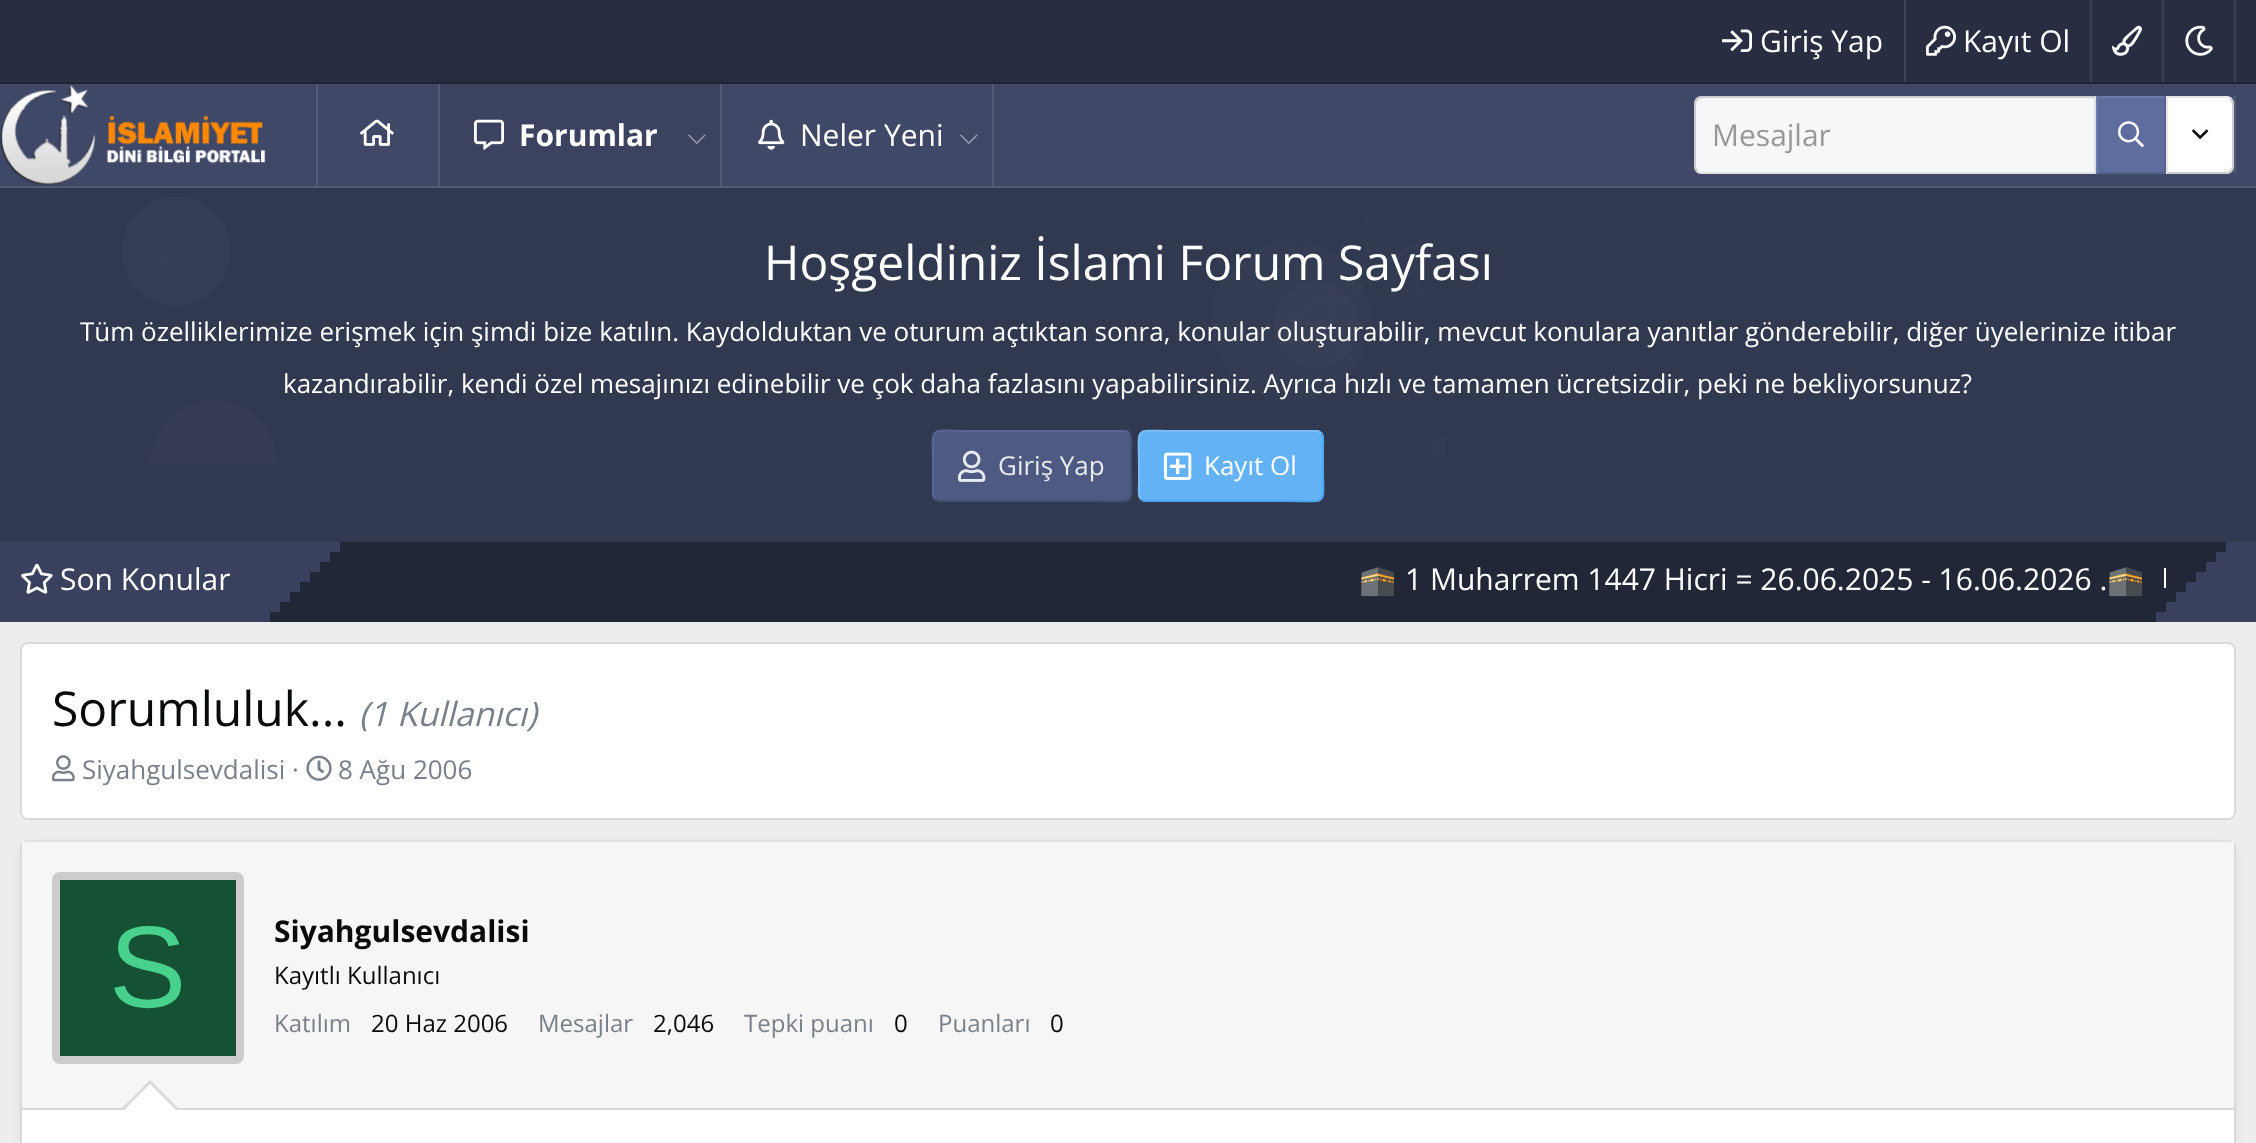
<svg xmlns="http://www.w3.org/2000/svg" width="2256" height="1143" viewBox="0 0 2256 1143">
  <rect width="100%" height="100%" fill="rgb(237,237,237)"/>
  <rect x="0" y="0" width="2256" height="82" fill="rgb(40,45,65)"/>
  <rect x="0" y="82" width="2256" height="2" fill="rgb(32,37,52)"/>
  <image x="1722" y="29" width="30" height="23" href="pic1.png"/>
  <text x="1760" y="52" font-family="Open Sans" font-size="30" fill="rgb(255,255,255)">Giriş Yap</text>
  <rect x="1904" y="0" width="2" height="82" fill="rgb(62,66,84)"/>
  <image x="1926" y="25" width="30" height="31" href="pic2.png"/>
  <text x="1963" y="52" font-family="Open Sans" font-size="30" fill="rgb(255,255,255)">Kayıt Ol</text>
  <rect x="2090" y="0" width="2" height="82" fill="rgb(62,66,84)"/>
  <image x="2112" y="25" width="30" height="31" href="pic3.png"/>
  <rect x="2234" y="0" width="2" height="82" fill="rgb(62,66,84)"/>
  <rect x="2162" y="0" width="2" height="82" fill="rgb(62,66,84)"/>
  <image x="2185" y="25" width="28" height="31" href="pic4.png"/>
  <rect x="0" y="84" width="2256" height="102" fill="rgb(63,72,103)"/>
  <rect x="0" y="186" width="2256" height="2" fill="rgb(82,90,118)"/>
  <image x="0" y="85" width="266" height="101" href="pic5.png"/>
  <rect x="316" y="84" width="2" height="102" fill="rgb(82,90,118)"/>
  <image x="360" y="119" width="34" height="27" href="pic6.png"/>
  <rect x="438" y="84" width="2" height="102" fill="rgb(82,90,118)"/>
  <path d="M444 84H716C718 84 720 86 720 88V186H440V88C440 86 442 84 444 84Z" fill="rgb(59,67,96)"/>
  <image x="474" y="119" width="30" height="31" href="pic7.png"/>
  <text x="519" y="146" font-family="Open Sans" font-size="30" font-weight="bold" fill="rgb(255,255,255)">Forumlar</text>
  <image x="688" y="134" width="18" height="10" href="pic8.png"/>
  <rect x="992" y="84" width="2" height="102" fill="rgb(82,90,118)"/>
  <rect x="720" y="84" width="2" height="102" fill="rgb(82,90,118)"/>
  <image x="758" y="119" width="27" height="31" href="pic9.png"/>
  <text x="800" y="146" font-family="Open Sans" font-size="30" fill="rgb(255,255,255)">Neler Yeni</text>
  <image x="960" y="134" width="18" height="10" href="pic10.png"/>
  <rect x="2234" y="96" width="2" height="78" fill="rgb(82,90,118)"/>
  <path d="M1702 96H2096V174H1702C1697.5 174 1694 170.5 1694 166V104C1694 99.5 1697.5 96 1702 96Z" fill="rgb(246,247,248)"/>
  <path d="M1702 96C1700 96 1698 97 1696 98L1698 100C1699 99 1700 98 1702 98H2094L2096 96Z" fill="rgb(204,204,204)"/>
  <path d="M2096 96L2094 98V172L2096 174Z" fill="rgb(224,224,224)"/>
  <path d="M2096 174L2094 172H1702C1700 172 1699 171 1698 170L1696 172C1698 173 1700 174 1702 174Z" fill="rgb(224,224,224)"/>
  <path d="M1694 104V166C1694 168 1695 170 1696 172L1698 170C1697 169 1696 168 1696 166V104C1696 102 1697 101 1698 100L1696 98C1695 100 1694 102 1694 104Z" fill="rgb(204,204,204)"/>
  <text x="1712" y="146" font-family="Open Sans" font-size="30" fill="rgb(151,152,153)">Mesajlar</text>
  <rect x="2098" y="98" width="66" height="74" fill="rgb(95,109,158)"/>
  <rect x="2096" y="96" width="70" height="2" fill="rgb(110,123,168)"/>
  <rect x="2164" y="96" width="2" height="78" fill="rgb(85,98,142)"/>
  <rect x="2096" y="172" width="70" height="2" fill="rgb(85,98,142)"/>
  <rect x="2096" y="96" width="2" height="78" fill="rgb(110,123,168)"/>
  <image x="2118" y="121" width="26" height="27" href="pic11.png"/>
  <path d="M2166 96H2226C2230.5 96 2234 99.5 2234 104V166C2234 170.5 2230.5 174 2226 174H2166Z" fill="rgb(255,255,255)"/>
  <path d="M2166 96L2168 98H2226C2228 98 2229 99 2230 100L2232 98C2230 97 2228 96 2226 96Z" fill="rgb(230,230,230)"/>
  <path d="M2234 166V104C2234 102 2233 100 2232 98L2230 100C2231 101 2232 102 2232 104V166C2232 168 2231 169 2230 170L2232 172C2233 170 2234 168 2234 166Z" fill="rgb(204,204,204)"/>
  <path d="M2226 174C2228 174 2230 173 2232 172L2230 170C2229 171 2228 172 2226 172H2168L2166 174Z" fill="rgb(204,204,204)"/>
  <path d="M2168 98L2166 96V174L2168 172Z" fill="rgb(230,230,230)"/>
  <image x="2192" y="129" width="17" height="11" href="pic12.png"/>
  <rect x="0" y="188" width="2256" height="354" fill="rgb(49,57,81)"/>
  <image x="123" y="197" width="1323" height="268" href="pic13.png"/>
  <text x="764" y="280" font-family="Open Sans" font-size="48" fill="rgb(255,255,255)">Hoşgeldiniz İslami Forum Sayfası</text>
  <g font-family="Open Sans" font-size="26" fill="rgb(255,255,255)">
    <text x="80" y="341">Tüm özelliklerimize erişmek için şimdi bize katılın. Kaydolduktan ve oturum açtıktan sonra, konular oluşturabilir, mevcut konulara yanıtlar gönderebilir, diğer üyelerinize itibar</text>
    <text x="283" y="393">kazandırabilir, kendi özel mesajınızı edinebilir ve çok daha fazlasını yapabilirsiniz. Ayrıca hızlı ve tamamen ücretsizdir, peki ne bekliyorsunuz?</text>
  </g>
  <rect x="932" y="430" width="200" height="72" rx="8" fill="rgb(79,90,131)"/>
  <path d="M1129 433C1132.5 436.5 1131 443.5 1131 447.5V466C1131 508 1137.5 501 1093.5 501H940C938 501 936.5 500.5 935 499" fill="none" stroke="rgb(69,79,115)" stroke-width="2"/>
  <path d="M935 499C931.5 495.5 933 488.5 933 484.5V466C933 424 926.5 431 970.5 431H1124C1126 431 1127.5 431.5 1129 433" fill="none" stroke="rgb(89,101,147)" stroke-width="2"/>
  <image x="958" y="450" width="28" height="32" href="pic14.png"/>
  <text x="998" y="475" font-family="Open Sans" font-size="26" fill="rgb(232,235,237)">Giriş Yap</text>
  <rect x="1138" y="430" width="186" height="72" rx="8" fill="rgb(99,178,245)"/>
  <path d="M1321 433C1324.5 436.5 1323 443.5 1323 447.5V466C1323 507 1329.5 501 1287.5 501H1146C1144 501 1142.5 500.5 1141 499" fill="none" stroke="rgb(75,166,243)" stroke-width="2"/>
  <path d="M1141 499C1137.5 495.5 1139 488.5 1139 484.5V466C1139 425 1132.5 431 1174.5 431H1316C1318 431 1319.5 431.5 1321 433" fill="none" stroke="rgb(123,190,247)" stroke-width="2"/>
  <image x="1164" y="452" width="28" height="28" href="pic15.png"/>
  <text x="1204" y="475" font-family="Open Sans" font-size="26" fill="rgb(255,255,255)">Kayıt Ol</text>
  <rect x="270" y="542" width="1956" height="80" fill="rgb(34,39,56)"/>
  <rect x="0" y="542" width="340" height="10" fill="rgb(57,65,94)"/>
  <rect x="0" y="552" width="330" height="10" fill="rgb(57,65,94)"/>
  <rect x="0" y="562" width="320" height="10" fill="rgb(57,65,94)"/>
  <rect x="0" y="572" width="310" height="10" fill="rgb(57,65,94)"/>
  <rect x="0" y="582" width="300" height="10" fill="rgb(57,65,94)"/>
  <rect x="0" y="592" width="290" height="10" fill="rgb(57,65,94)"/>
  <rect x="0" y="602" width="280" height="10" fill="rgb(57,65,94)"/>
  <rect x="0" y="612" width="270" height="10" fill="rgb(57,65,94)"/>
  <text x="1359" y="590" font-family="Noto Color Emoji" font-size="30" fill="rgb(255,255,255)">🕋</text>
  <text x="1405" y="590" font-family="Open Sans" font-size="30" fill="rgb(255,255,255)">1 Muharrem 1447 Hicri = 26.06.2025 - 16.06.2026 .</text>
  <text x="2107" y="590" font-family="Noto Color Emoji" font-size="30" fill="rgb(255,255,255)">🕋</text>
  <rect x="2164" y="568" width="2" height="20" fill="rgb(255,255,255)"/>
  <rect x="2226" y="542" width="30" height="10" fill="rgb(57,65,94)"/>
  <rect x="2216" y="552" width="40" height="10" fill="rgb(57,65,94)"/>
  <rect x="2206" y="562" width="50" height="10" fill="rgb(57,65,94)"/>
  <rect x="2196" y="572" width="60" height="10" fill="rgb(57,65,94)"/>
  <rect x="2186" y="582" width="70" height="10" fill="rgb(57,65,94)"/>
  <rect x="2176" y="592" width="80" height="10" fill="rgb(57,65,94)"/>
  <rect x="2166" y="602" width="90" height="10" fill="rgb(57,65,94)"/>
  <rect x="2156" y="612" width="100" height="10" fill="rgb(57,65,94)"/>
  <image x="21" y="563" width="32" height="31" href="pic16.png"/>
  <text x="60" y="590" font-family="Open Sans" font-size="30" fill="rgb(255,255,255)">Son Konular</text>
  <rect x="20" y="642" width="2216" height="178" rx="8" fill="rgb(255,255,255)"/>
  <rect x="21" y="643" width="2214" height="176" rx="7" fill="none" stroke="rgba(0,0,0,0.15)" stroke-width="2"/>
  <text x="52" y="726" font-family="Open Sans" font-size="48" fill="rgb(9,10,10)">Sorumluluk...</text>
  <text x="359" y="726" font-family="Open Sans" font-size="33.5" font-style="italic" fill="rgb(121,128,138)">(1 Kullanıcı)</text>
  <image x="52" y="755" width="23" height="27" href="pic17.png"/>
  <text x="82" y="779" font-family="Open Sans" font-size="26" fill="rgb(121,128,138)">Siyahgulsevdalisi ·</text>
  <image x="306" y="755" width="26" height="26" href="pic18.png"/>
  <text x="338" y="779" font-family="Open Sans" font-size="26" fill="rgb(121,128,138)">8 Ağu 2006</text>
  <rect x="20" y="844" width="2216" height="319" rx="8" fill="rgba(108,111,115,0.1)" filter="blur(4px)"/>
  <rect x="20" y="840" width="2216" height="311" rx="8" fill="rgb(255,255,255)"/>
  <path d="M23 843C24.5 841.5 26 841 28 841H2228C2230 841 2231.5 841.5 2233 843" fill="none" stroke="rgb(224,224,224)" stroke-width="2"/>
  <path d="M2233 843C2234.5 844.5 2235 846 2235 848V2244C2235 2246 2234.5 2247.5 2233 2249" fill="none" stroke="rgb(217,217,217)" stroke-width="2"/>
  <path d="M23 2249C21.5 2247.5 21 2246 21 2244V848C21 846 21.5 844.5 23 843" fill="none" stroke="rgb(217,217,217)" stroke-width="2"/>
  <rect x="22" y="842" width="2212" height="266" fill="rgb(246,246,246)"/>
  <rect x="22" y="1108" width="2212" height="2" fill="rgb(217,217,217)"/>
  <rect x="56" y="876" width="184" height="184" rx="4" fill="rgb(20,82,51)" stroke="rgb(204,204,204)" stroke-width="8"/>
  <text x="109" y="1007" font-family="Liberation Sans" font-size="116" fill="rgb(71,209,140)">S</text>
  <text x="274" y="942" font-family="Open Sans" font-size="30" font-weight="bold" fill="rgb(9,10,10)">Siyahgulsevdalisi</text>
  <text x="274" y="984" font-family="Open Sans" font-size="24" fill="rgb(9,10,10)">Kayıtlı Kullanıcı</text>
  <text x="274" y="1032" font-family="Open Sans" font-size="24" fill="rgb(121,128,138)">Katılım</text>
  <text x="371" y="1032" font-family="Open Sans" font-size="24" fill="rgb(9,10,10)">20 Haz 2006</text>
  <text x="538" y="1032" font-family="Open Sans" font-size="24" fill="rgb(121,128,138)">Mesajlar</text>
  <text x="653" y="1032" font-family="Open Sans" font-size="24" fill="rgb(9,10,10)">2,046</text>
  <text x="744" y="1032" font-family="Open Sans" font-size="24" fill="rgb(121,128,138)">Tepki puanı</text>
  <text x="894" y="1032" font-family="Open Sans" font-size="24" fill="rgb(9,10,10)">0</text>
  <text x="938" y="1032" font-family="Open Sans" font-size="24" fill="rgb(121,128,138)">Puanları</text>
  <text x="1050" y="1032" font-family="Open Sans" font-size="24" fill="rgb(9,10,10)">0</text>
  <path d="M180 1110H120L150 1080Z" fill="rgb(217,217,217)"/>
  <path d="M178 1112H122L150 1084Z" fill="rgb(255,255,255)"/>
</svg>
